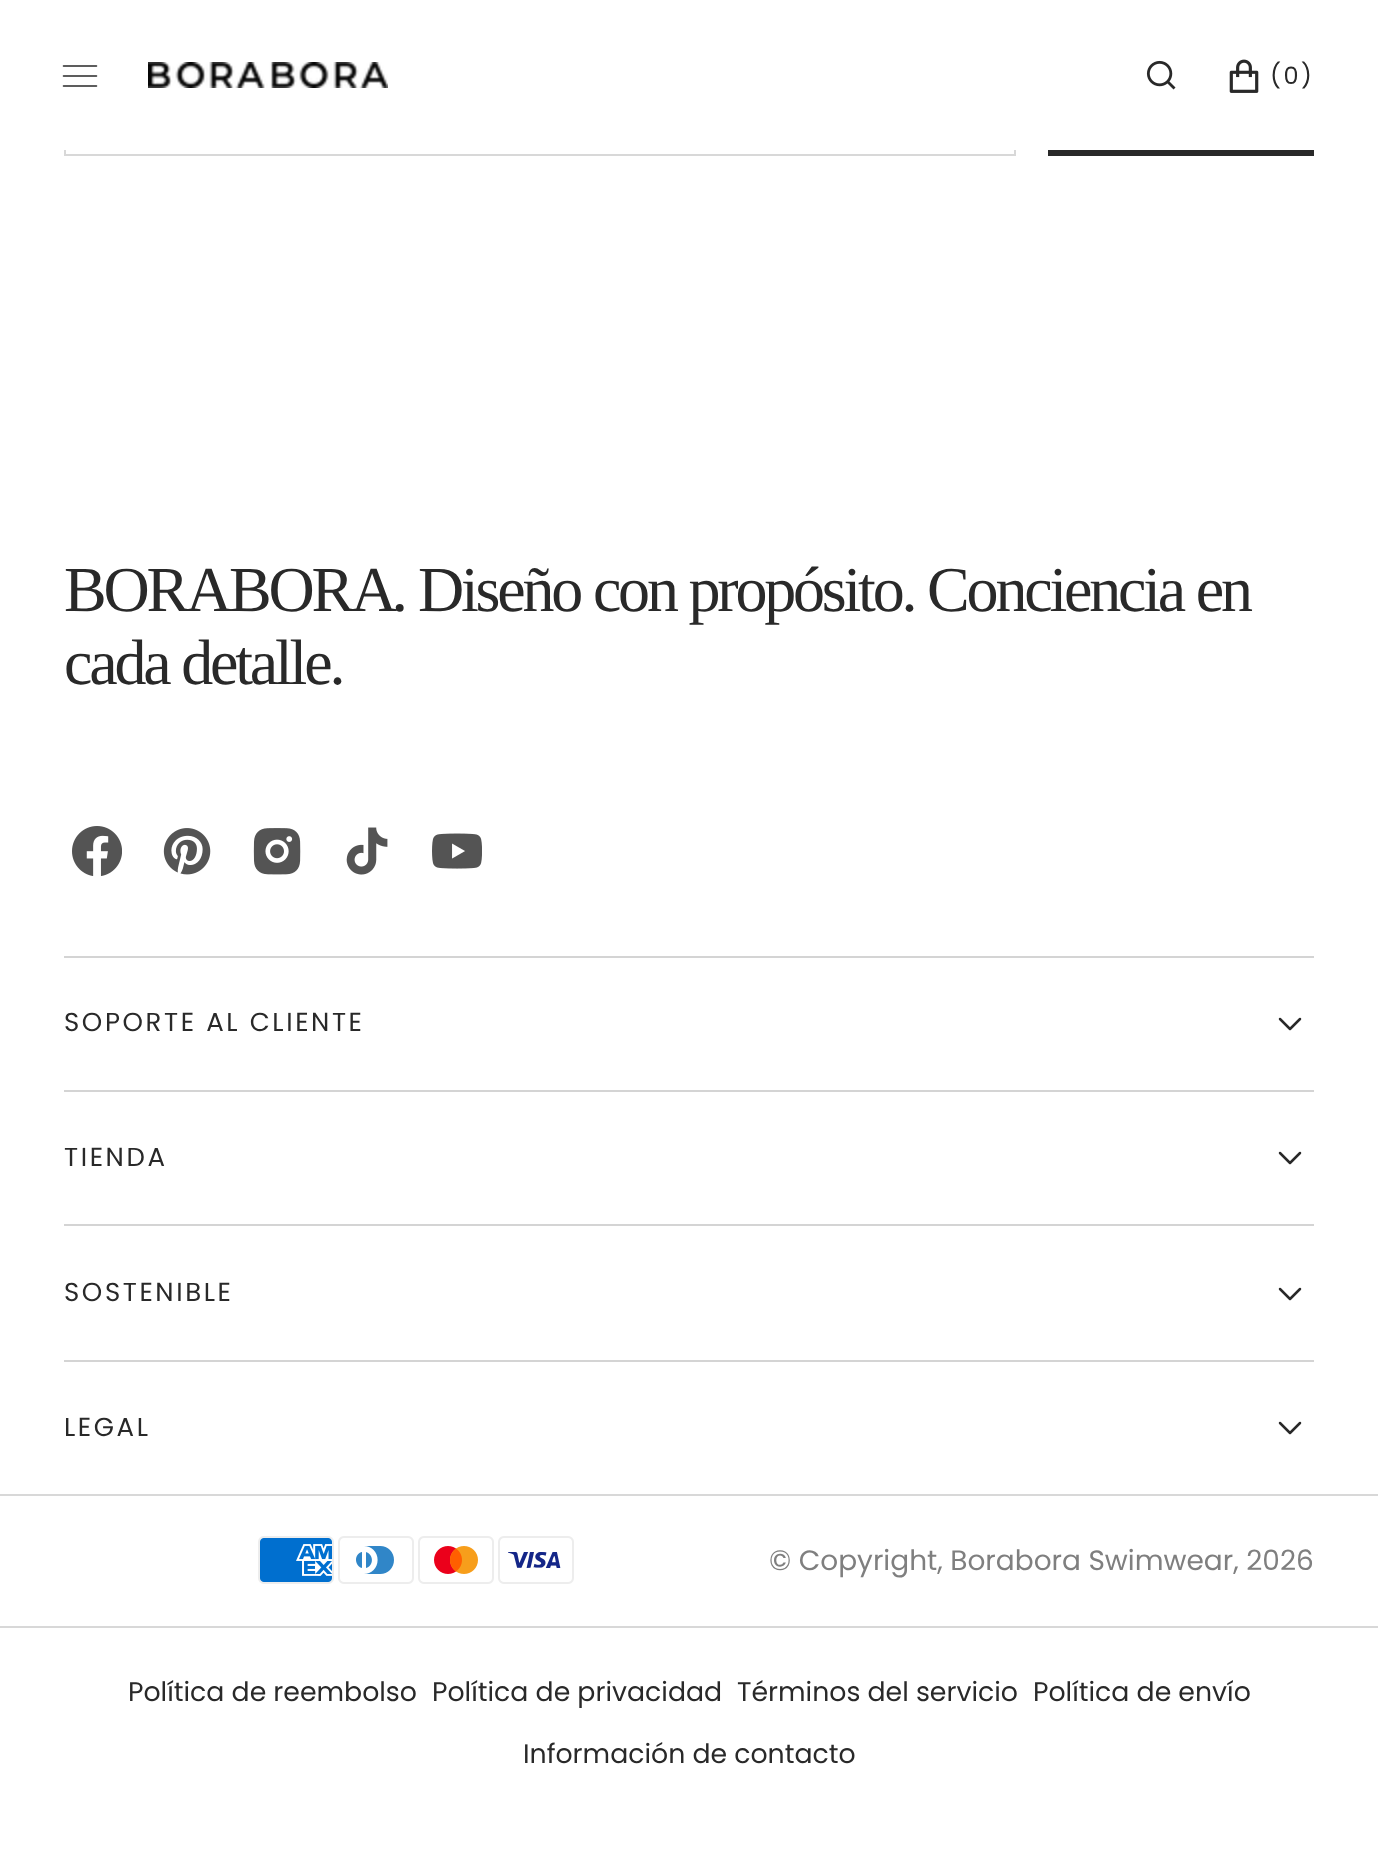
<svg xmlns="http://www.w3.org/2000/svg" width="1378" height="1855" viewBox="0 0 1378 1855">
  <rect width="100%" height="100%" fill="rgb(255,255,255)"/>
  <rect x="65" y="37" width="950" height="118" fill="none" stroke="rgb(216,216,216)" stroke-width="2"/>
  <rect x="1048" y="150" width="266" height="6" fill="rgb(41,41,41)"/>
  <rect x="64" y="36" width="952" height="114" fill="rgb(255,255,255)"/>
  <path d="M63.5 66H96.5M63.5 76H96.5M63.5 86H96.5" fill="none" stroke="rgb(41,41,41)" stroke-width="1.6" stroke-linecap="round" stroke-linejoin="round"/>
  <image x="148" y="62" width="240" height="26" href="pic1.png"/>
  <image x="1146" y="60" width="30" height="30" href="pic2.png"/>
  <image x="1229" y="59" width="30" height="34" href="pic3.png"/>
  <text x="1270" y="84" font-family="Poppins" font-size="24" letter-spacing="2.5" fill="rgb(41,41,41)">(0)</text>
  <text x="64" y="611" font-family="Liberation Serif" font-size="64" letter-spacing="-3.2" fill="rgb(41,41,41)">BORABORA</text>
  <text x="394" y="611" font-family="Cormorant" font-size="70" font-weight="bold" font-style="italic" letter-spacing="-3.2" fill="rgb(41,41,41)">.</text>
  <g font-family="Liberation Serif" font-size="64" letter-spacing="-3.2" fill="rgb(41,41,41)">
    <text x="418" y="611">Diseño con propósito. Conciencia en</text>
    <text x="64" y="684">cada detalle.</text>
  </g>
  <image x="72" y="826" width="50" height="50" href="pic4.png"/>
  <image x="163" y="828" width="48" height="47" href="pic5.png"/>
  <image x="253" y="828" width="48" height="47" href="pic6.png"/>
  <image x="346" y="827" width="42" height="48" href="pic7.png"/>
  <image x="432" y="833" width="50" height="36" href="pic8.png"/>
  <rect x="64" y="956" width="1250" height="2" fill="rgb(212,212,212)"/>
  <text x="64" y="1031" font-family="Poppins" font-size="26" letter-spacing="2.6" fill="rgb(41,41,41)">SOPORTE AL CLIENTE</text>
  <path d="M1300 1019L1290 1029L1280 1019" fill="none" stroke="rgb(41,41,41)" stroke-width="2.5" stroke-linecap="round" stroke-linejoin="round"/>
  <rect x="64" y="1090" width="1250" height="2" fill="rgb(212,212,212)"/>
  <text x="64" y="1166" font-family="Poppins" font-size="26" letter-spacing="2.6" fill="rgb(41,41,41)">TIENDA</text>
  <path d="M1300 1153L1290 1163L1280 1153" fill="none" stroke="rgb(41,41,41)" stroke-width="2.5" stroke-linecap="round" stroke-linejoin="round"/>
  <rect x="64" y="1224" width="1250" height="2" fill="rgb(212,212,212)"/>
  <text x="64" y="1301" font-family="Poppins" font-size="26" letter-spacing="2.6" fill="rgb(41,41,41)">SOSTENIBLE</text>
  <path d="M1300 1289L1290 1299L1280 1289" fill="none" stroke="rgb(41,41,41)" stroke-width="2.5" stroke-linecap="round" stroke-linejoin="round"/>
  <rect x="64" y="1360" width="1250" height="2" fill="rgb(212,212,212)"/>
  <text x="64" y="1436" font-family="Poppins" font-size="26" letter-spacing="2.6" fill="rgb(41,41,41)">LEGAL</text>
  <path d="M1300 1423L1290 1433L1280 1423" fill="none" stroke="rgb(41,41,41)" stroke-width="2.5" stroke-linecap="round" stroke-linejoin="round"/>
  <rect x="0" y="1494" width="1378" height="2" fill="rgb(216,216,216)"/>
  <image x="258" y="1536" width="76" height="48" href="pic9.png"/>
  <image x="338" y="1536" width="76" height="48" href="pic10.png"/>
  <image x="418" y="1536" width="76" height="48" href="pic11.png"/>
  <image x="498" y="1536" width="76" height="48" href="pic12.png"/>
  <text x="769" y="1570" font-family="Poppins" font-size="28" fill="rgb(127,127,127)">© Copyright, Borabora Swimwear, 2026</text>
  <rect x="0" y="1626" width="1378" height="2" fill="rgb(216,216,216)"/>
  <g font-family="Poppins" font-size="26.75" fill="rgb(41,41,41)">
    <text x="128" y="1701">Política de reembolso</text>
    <text x="432" y="1701">Política de privacidad</text>
    <text x="737" y="1701">Términos del servicio</text>
    <text x="1033" y="1701">Política de envío</text>
    <text x="523" y="1763">Información de contacto</text>
  </g>
</svg>
